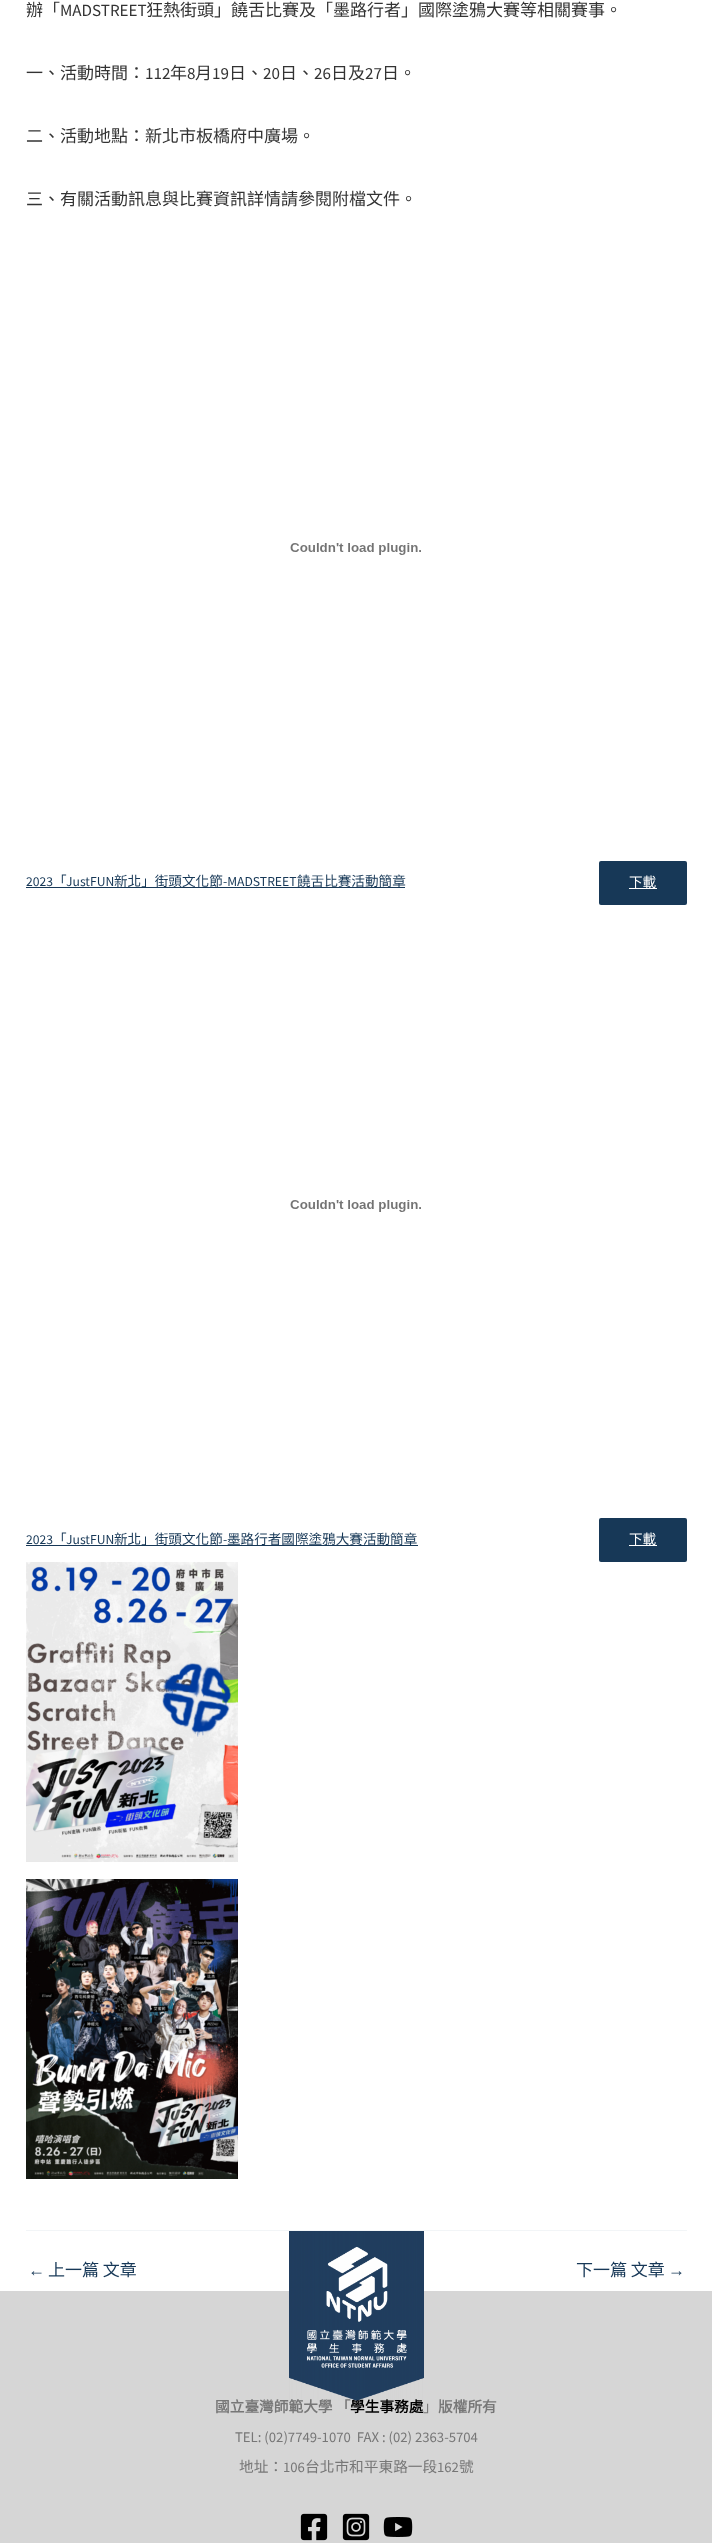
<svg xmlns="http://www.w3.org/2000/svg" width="712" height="2543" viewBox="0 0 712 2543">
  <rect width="100%" height="100%" fill="rgb(255,255,255)"/>
  <text x="26" y="16" font-family="Noto Sans CJK TC" font-size="17" fill="rgb(51,51,51)">辦「</text>
  <text x="60" y="16" font-family="Source Sans Pro" font-size="17" fill="rgb(51,51,51)">MADSTREET</text>
  <g font-family="Noto Sans CJK TC" font-size="17" fill="rgb(51,51,51)">
    <text x="146" y="16">狂熱街頭」饒舌比賽及「墨路行者」國際塗鴉大賽等相關賽事。</text>
    <text x="26" y="79">一、活動時間：</text>
  </g>
  <text x="145" y="79" font-family="Source Sans Pro" font-size="17" fill="rgb(51,51,51)">112</text>
  <text x="170" y="79" font-family="Noto Sans CJK TC" font-size="17" fill="rgb(51,51,51)">年</text>
  <text x="187" y="79" font-family="Source Sans Pro" font-size="17" fill="rgb(51,51,51)">8</text>
  <text x="195" y="79" font-family="Noto Sans CJK TC" font-size="17" fill="rgb(51,51,51)">月</text>
  <text x="212" y="79" font-family="Source Sans Pro" font-size="17" fill="rgb(51,51,51)">19</text>
  <text x="229" y="79" font-family="Noto Sans CJK TC" font-size="17" fill="rgb(51,51,51)">日、</text>
  <text x="263" y="79" font-family="Source Sans Pro" font-size="17" fill="rgb(51,51,51)">20</text>
  <text x="280" y="79" font-family="Noto Sans CJK TC" font-size="17" fill="rgb(51,51,51)">日、</text>
  <text x="314" y="79" font-family="Source Sans Pro" font-size="17" fill="rgb(51,51,51)">26</text>
  <text x="331" y="79" font-family="Noto Sans CJK TC" font-size="17" fill="rgb(51,51,51)">日及</text>
  <text x="365" y="79" font-family="Source Sans Pro" font-size="17" fill="rgb(51,51,51)">27</text>
  <g font-family="Noto Sans CJK TC" font-size="17" fill="rgb(51,51,51)">
    <text x="382" y="79">日。</text>
    <text x="26" y="142">二、活動地點：新北市板橋府中廣場。</text>
    <text x="26" y="205">三、有關活動訊息與比賽資訊詳情請參閱附檔文件。</text>
  </g>
  <image x="290" y="543" width="131" height="12" href="pic1.png"/>
  <text x="26" y="886" font-family="Source Sans Pro" font-size="13.6" fill="rgb(23,56,87)">2023</text>
  <rect x="26" y="887" width="379" height="1" fill="rgb(23,56,87)"/>
  <text x="53" y="886" font-family="Noto Sans CJK TC" font-size="13.6" fill="rgb(23,56,87)">「</text>
  <text x="66" y="886" font-family="Source Sans Pro" font-size="13.6" fill="rgb(23,56,87)">JustFUN</text>
  <text x="114" y="886" font-family="Noto Sans CJK TC" font-size="13.6" fill="rgb(23,56,87)">新北」街頭文化節</text>
  <text x="223" y="886" font-family="Source Sans Pro" font-size="13.6" fill="rgb(23,56,87)">-MADSTREET</text>
  <text x="297" y="886" font-family="Noto Sans CJK TC" font-size="13.6" fill="rgb(23,56,87)">饒舌比賽活動簡章</text>
  <rect x="599" y="861" width="88" height="44" rx="2" fill="rgb(23,56,87)"/>
  <rect x="629" y="888" width="28" height="1" fill="rgb(255,255,255)"/>
  <text x="629" y="887" font-family="Noto Sans CJK TC" font-size="13.6" fill="rgb(255,255,255)">下載</text>
  <image x="290" y="1200" width="131" height="12" href="pic1.png"/>
  <text x="26" y="1544" font-family="Source Sans Pro" font-size="13.6" fill="rgb(23,56,87)">2023</text>
  <text x="53" y="1544" font-family="Noto Sans CJK TC" font-size="13.6" fill="rgb(23,56,87)">「</text>
  <text x="66" y="1544" font-family="Source Sans Pro" font-size="13.6" fill="rgb(23,56,87)">JustFUN</text>
  <rect x="26" y="1545" width="392" height="1" fill="rgb(23,56,87)"/>
  <text x="114" y="1544" font-family="Noto Sans CJK TC" font-size="13.6" fill="rgb(23,56,87)">新北」街頭文化節</text>
  <text x="223" y="1544" font-family="Source Sans Pro" font-size="13.6" fill="rgb(23,56,87)">-</text>
  <text x="227" y="1544" font-family="Noto Sans CJK TC" font-size="13.6" fill="rgb(23,56,87)">墨路行者國際塗鴉大賽活動簡章</text>
  <rect x="599" y="1518" width="88" height="44" rx="2" fill="rgb(23,56,87)"/>
  <rect x="629" y="1545" width="28" height="1" fill="rgb(255,255,255)"/>
  <text x="629" y="1544" font-family="Noto Sans CJK TC" font-size="13.6" fill="rgb(255,255,255)">下載</text>
  <image x="26" y="1562" width="212" height="300" href="pic2.png"/>
  <image x="26" y="1879" width="212" height="300" href="pic3.png"/>
  <rect x="26" y="2230" width="661" height="1" fill="rgb(242,245,247)"/>
  <text x="28" y="2276" font-family="Liberation Sans" font-size="17" fill="rgb(23,56,87)">←</text>
  <g font-family="Noto Sans CJK TC" font-size="17" fill="rgb(23,56,87)">
    <text x="48" y="2276">上一篇 文章</text>
    <text x="576" y="2276">下一篇 文章</text>
  </g>
  <text x="668" y="2276" font-family="Liberation Sans" font-size="17" fill="rgb(23,56,87)">→</text>
  <rect x="0" y="2291" width="712" height="252" fill="rgb(214,214,214)"/>
  <text x="215" y="2412" font-family="Noto Sans CJK TC" font-size="14.7" font-weight="bold" fill="rgb(119,119,119)">國立臺灣師範大學 「</text>
  <text x="350" y="2412" font-family="Noto Sans CJK TC" font-size="14.7" font-weight="bold" fill="rgb(0,0,0)">學生事務處</text>
  <image x="289" y="2231" width="135" height="170" href="pic4.png"/>
  <text x="423" y="2412" font-family="Noto Sans CJK TC" font-size="14.7" fill="rgb(119,119,119)">」</text>
  <text x="438" y="2412" font-family="Noto Sans CJK TC" font-size="14.7" font-weight="bold" fill="rgb(119,119,119)">版權所有</text>
  <text x="235" y="2442" font-family="Source Sans Pro" font-size="14.7" fill="rgb(119,119,119)" xml:space="preserve">TEL: (02)7749-1070  FAX : (02) 2363-5704</text>
  <text x="239" y="2472" font-family="Noto Sans CJK TC" font-size="14.7" fill="rgb(119,119,119)">地址：</text>
  <text x="283" y="2472" font-family="Source Sans Pro" font-size="14.7" fill="rgb(119,119,119)">106</text>
  <text x="305" y="2472" font-family="Noto Sans CJK TC" font-size="14.7" fill="rgb(119,119,119)">台北市和平東路一段</text>
  <text x="437" y="2472" font-family="Source Sans Pro" font-size="14.7" fill="rgb(119,119,119)">162</text>
  <text x="459" y="2472" font-family="Noto Sans CJK TC" font-size="14.7" fill="rgb(119,119,119)">號</text>
  <image x="300" y="2513" width="28" height="28" href="pic5.png"/>
  <image x="342" y="2513" width="28" height="28" href="pic6.png"/>
  <image x="383" y="2517" width="30" height="20" href="pic7.png"/>
</svg>
